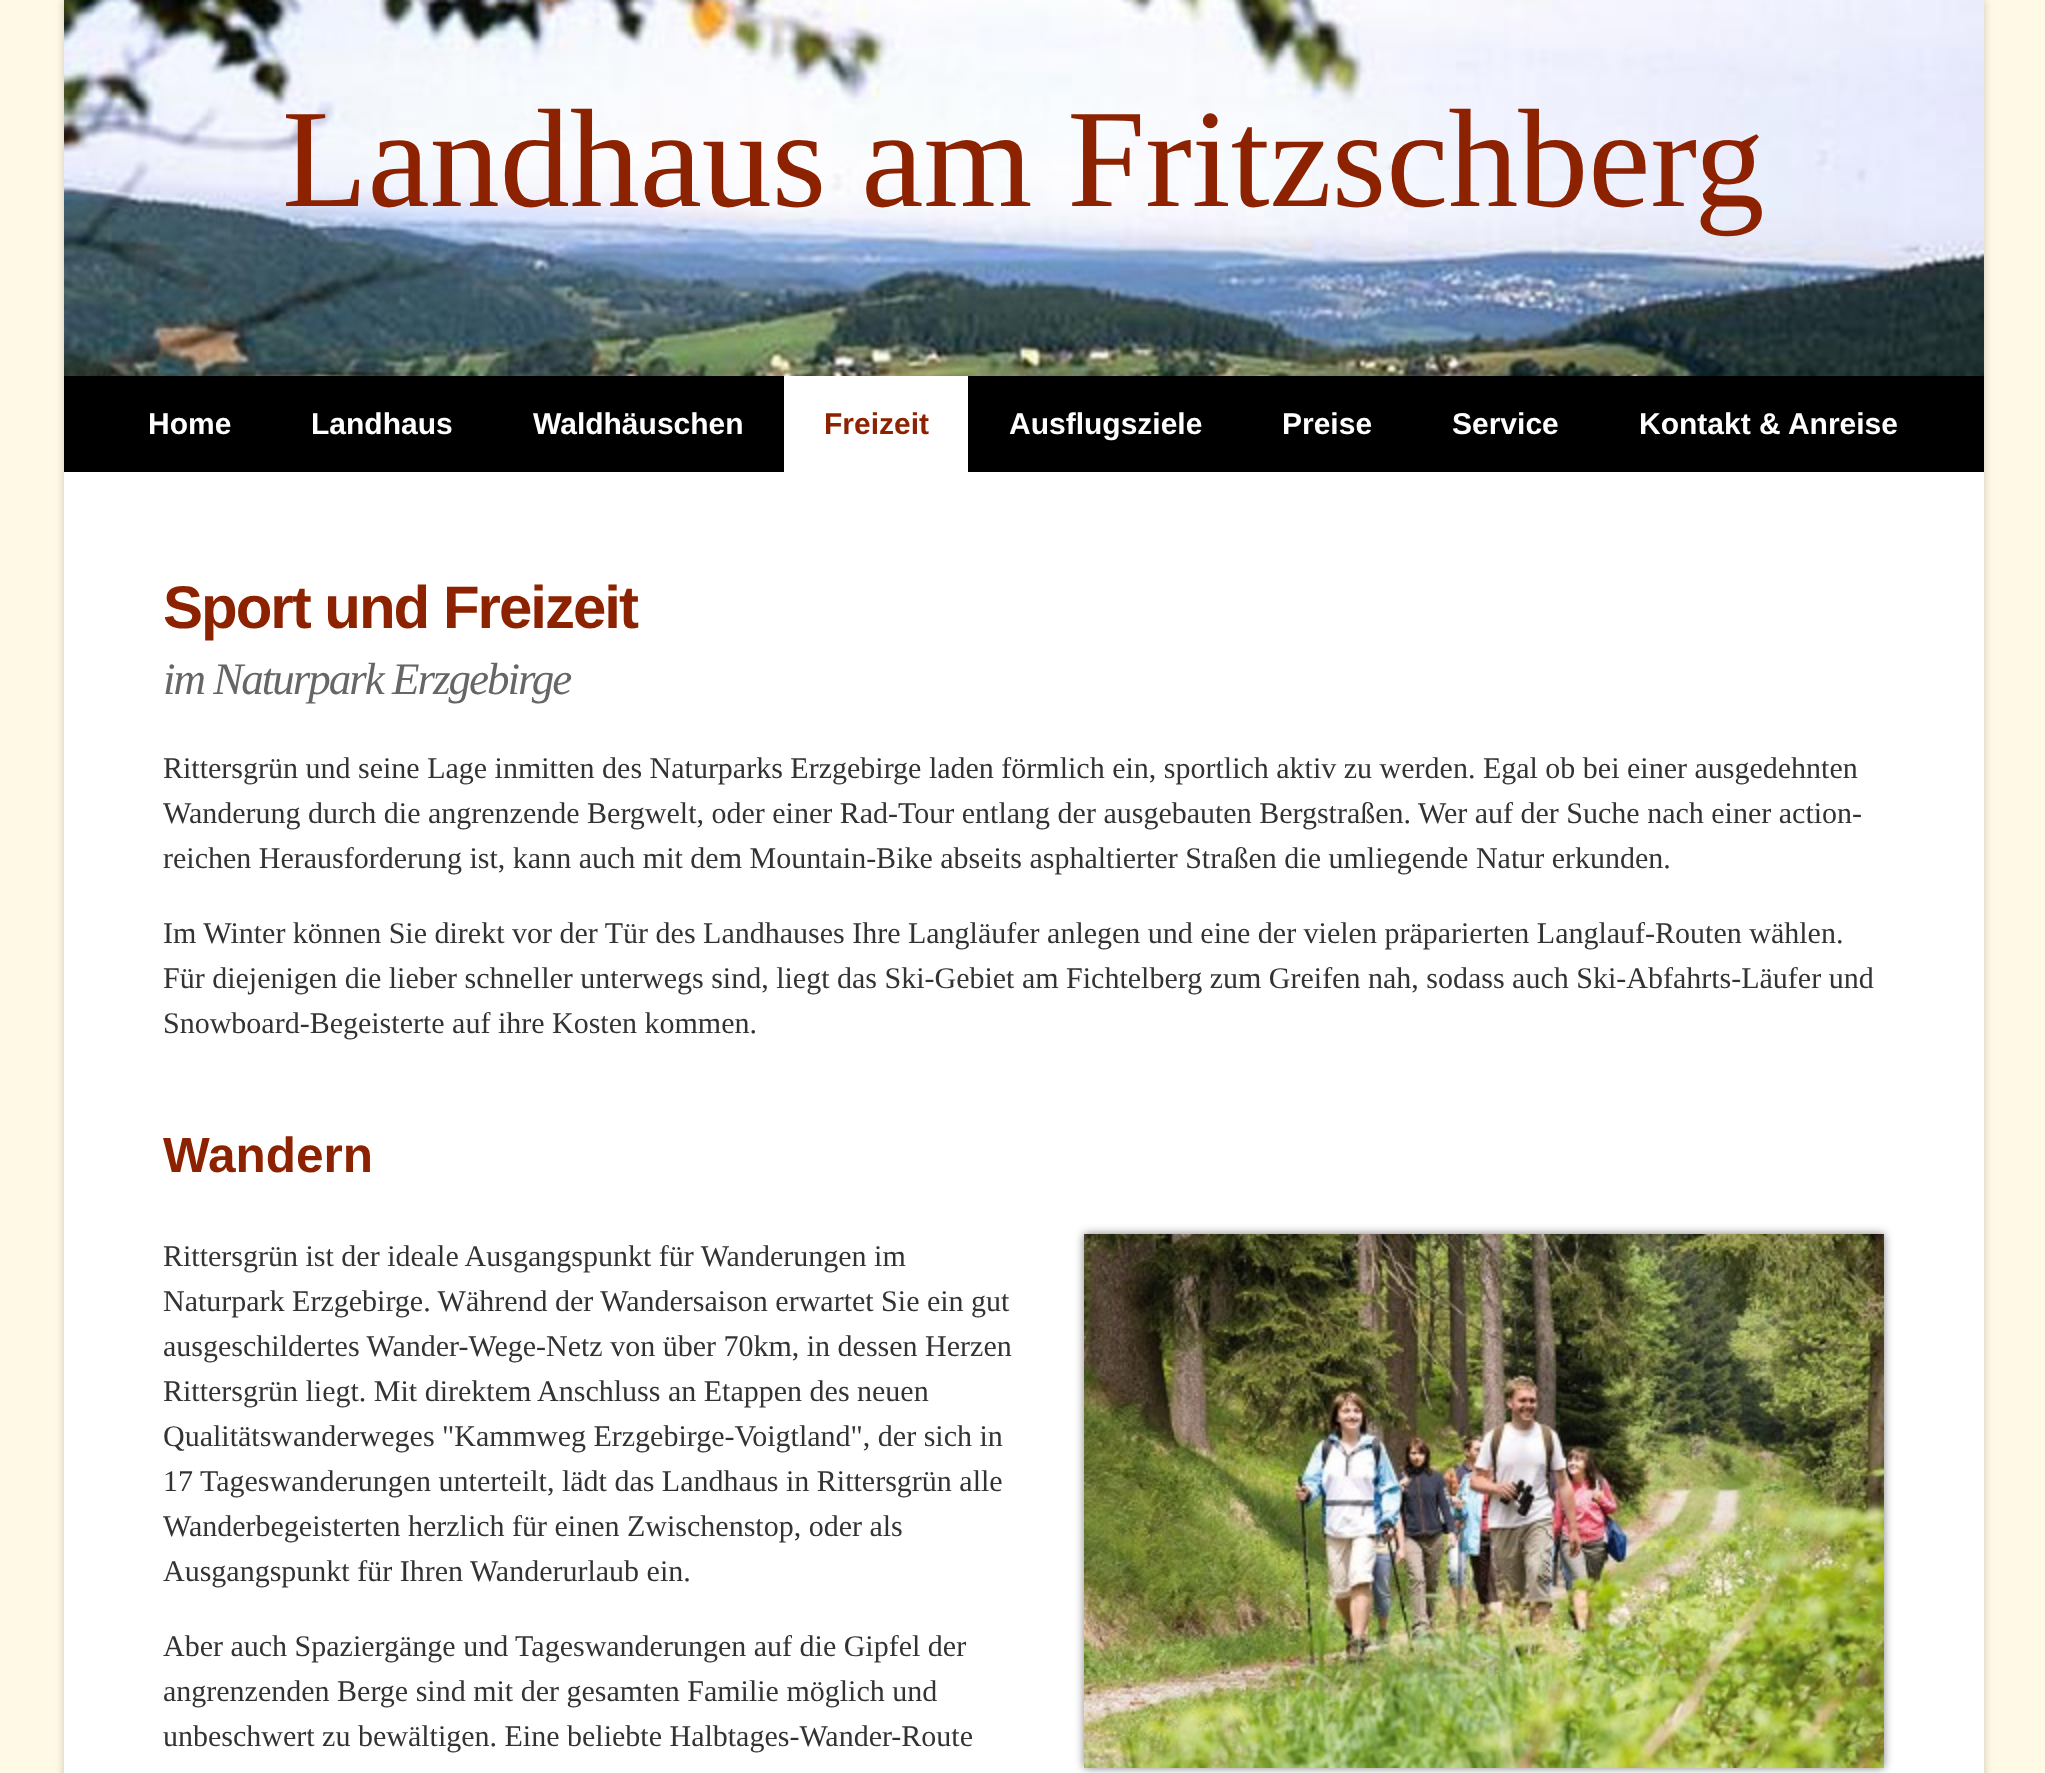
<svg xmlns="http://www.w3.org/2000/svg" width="2045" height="1773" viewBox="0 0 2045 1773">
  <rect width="100%" height="100%" fill="rgb(255,249,229)"/>
  <rect x="64" y="0" width="1920" height="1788" fill="rgba(0,0,0,0.2)" filter="blur(5px)"/>
  <rect x="64" y="472" width="1920" height="1301" fill="rgb(255,255,255)"/>
  <image x="64" y="0" width="1920" height="376" href="pic1.png"/>
  <text x="282" y="206" font-family="Liberation Serif" font-size="140" fill="rgb(140,34,0)">Landhaus am Fritzschberg</text>
  <rect x="64" y="376" width="1920" height="96" fill="rgb(0,0,0)"/>
  <g font-family="Liberation Sans" font-size="30" font-weight="bold" fill="rgb(255,255,255)">
    <text x="148" y="434">Home</text>
    <text x="311" y="434">Landhaus</text>
    <text x="533" y="434">Waldhäuschen</text>
  </g>
  <rect x="784" y="376" width="184" height="96" fill="rgb(255,255,255)"/>
  <text x="824" y="434" font-family="Liberation Sans" font-size="30" font-weight="bold" fill="rgb(140,34,0)">Freizeit</text>
  <g font-family="Liberation Sans" font-size="30" font-weight="bold" fill="rgb(255,255,255)">
    <text x="1009" y="434">Ausflugsziele</text>
    <text x="1282" y="434">Preise</text>
    <text x="1452" y="434">Service</text>
    <text x="1639" y="434">Kontakt &amp; Anreise</text>
  </g>
  <text x="163" y="628" font-family="Liberation Sans" font-size="60" font-weight="bold" letter-spacing="-2" fill="rgb(140,34,0)">Sport und Freizeit</text>
  <text x="163" y="694" font-family="Liberation Serif" font-size="45" font-style="italic" letter-spacing="-2" fill="rgb(102,102,102)">im Naturpark Erzgebirge</text>
  <g font-family="Liberation Serif" font-size="30" fill="rgb(51,51,51)">
    <text>
      <tspan x="163" y="778">Rittersgrün und seine Lage inmitten des Naturparks Erzgebirge laden förmlich ein, sportlich aktiv zu werden. Egal ob bei einer ausgedehnten</tspan>
      <tspan x="163" y="823">Wanderung durch die angrenzende Bergwelt, oder einer Rad-Tour entlang der ausgebauten Bergstraßen. Wer auf der Suche nach einer action-</tspan>
      <tspan x="163" y="868">reichen Herausforderung ist, kann auch mit dem Mountain-Bike abseits asphaltierter Straßen die umliegende Natur erkunden.</tspan>
    </text>
    <text>
      <tspan x="163" y="943">Im Winter können Sie direkt vor der Tür des Landhauses Ihre Langläufer anlegen und eine der vielen präparierten Langlauf-Routen wählen.</tspan>
      <tspan x="163" y="988">Für diejenigen die lieber schneller unterwegs sind, liegt das Ski-Gebiet am Fichtelberg zum Greifen nah, sodass auch Ski-Abfahrts-Läufer und</tspan>
      <tspan x="163" y="1033">Snowboard-Begeisterte auf ihre Kosten kommen.</tspan>
    </text>
  </g>
  <text x="163" y="1172" font-family="Liberation Sans" font-size="49.5" font-weight="bold" fill="rgb(140,34,0)">Wandern</text>
  <g font-family="Liberation Serif" font-size="30" fill="rgb(51,51,51)">
    <text>
      <tspan x="163" y="1266">Rittersgrün ist der ideale Ausgangspunkt für Wanderungen im</tspan>
      <tspan x="163" y="1311">Naturpark Erzgebirge. Während der Wandersaison erwartet Sie ein gut</tspan>
      <tspan x="163" y="1356">ausgeschildertes Wander-Wege-Netz von über 70km, in dessen Herzen</tspan>
      <tspan x="163" y="1401">Rittersgrün liegt. Mit direktem Anschluss an Etappen des neuen</tspan>
      <tspan x="163" y="1446">Qualitätswanderweges "Kammweg Erzgebirge-Voigtland", der sich in</tspan>
      <tspan x="163" y="1491">17 Tageswanderungen unterteilt, lädt das Landhaus in Rittersgrün alle</tspan>
      <tspan x="163" y="1536">Wanderbegeisterten herzlich für einen Zwischenstop, oder als</tspan>
      <tspan x="163" y="1581">Ausgangspunkt für Ihren Wanderurlaub ein.</tspan>
    </text>
  </g>
  <rect x="1084" y="1234" width="800" height="534" fill="rgba(0,0,0,0.5)" filter="blur(5px)"/>
  <image x="1084" y="1234" width="800" height="534" href="pic2.png"/>
  <g font-family="Liberation Serif" font-size="30" fill="rgb(51,51,51)">
    <text>
      <tspan x="163" y="1656">Aber auch Spaziergänge und Tageswanderungen auf die Gipfel der</tspan>
      <tspan x="163" y="1701">angrenzenden Berge sind mit der gesamten Familie möglich und</tspan>
      <tspan x="163" y="1746">unbeschwert zu bewältigen. Eine beliebte Halbtages-Wander-Route</tspan>
    </text>
  </g>
</svg>
